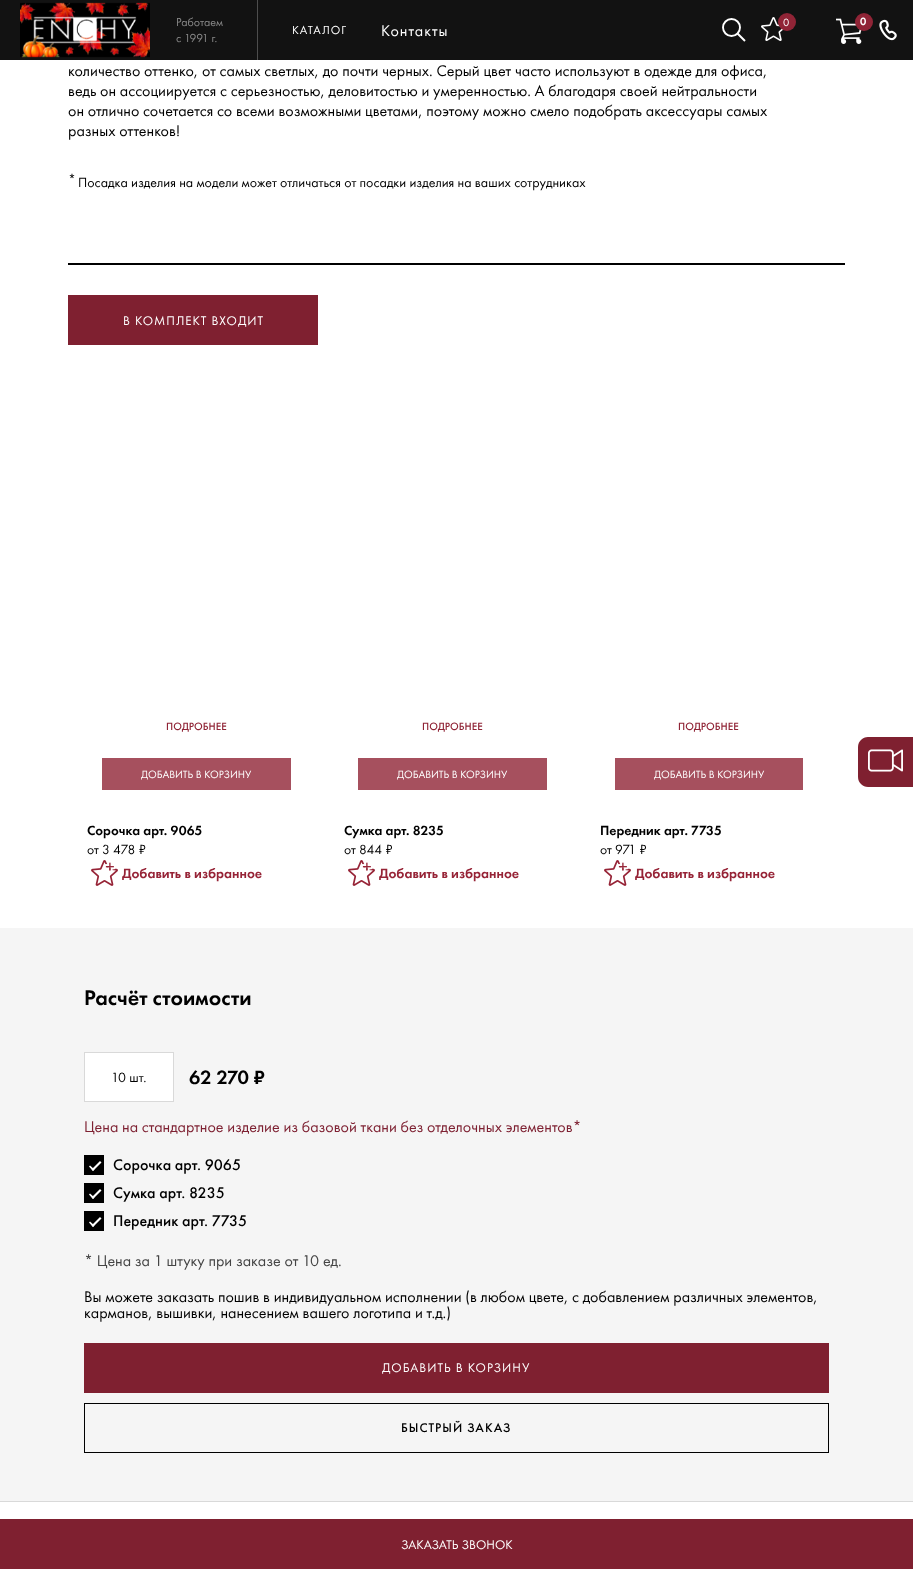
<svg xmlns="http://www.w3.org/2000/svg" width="913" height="1569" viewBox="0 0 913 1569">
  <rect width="100%" height="100%" fill="rgb(255,255,255)"/>
  <rect x="0" y="0" width="913" height="60" fill="rgb(18,18,18)"/>
  <rect x="257" y="0" width="1" height="60" fill="rgb(77,77,77)"/>
  <image x="20" y="2" width="130" height="56" href="pic1.png"/>
  <g font-family="Futura PT" font-size="12" fill="rgb(137,137,137)">
    <text>
      <tspan x="176" y="26">Работаем</tspan>
      <tspan x="176" y="42">с 1991 г.</tspan>
    </text>
  </g>
  <text x="292" y="34" font-family="Futura PT" font-size="12" letter-spacing="1" fill="rgb(255,255,255)">КАТАЛОГ</text>
  <text x="381" y="36" font-family="Futura PT" font-size="16" letter-spacing="1" fill="rgb(255,255,255)">Контакты</text>
  <circle cx="731.5" cy="27.5" r="8.5" fill="none" stroke="rgb(255,255,255)" stroke-width="1.9"/>
  <path d="M737.5 33.5L745 41" fill="none" stroke="rgb(255,255,255)" stroke-width="1.9"/>
  <image x="761" y="17" width="22" height="24" href="pic2.png"/>
  <circle cx="787" cy="22" r="9" fill="rgb(144,36,54)"/>
  <text x="783" y="26" font-family="Futura PT" font-size="11" letter-spacing="1" fill="rgb(255,255,255)">0</text>
  <image x="836" y="18" width="26" height="26" href="pic3.png"/>
  <circle cx="864" cy="22" r="9" fill="rgb(144,36,54)"/>
  <text x="860" y="25" font-family="Futura PT" font-size="11" font-weight="500" letter-spacing="1" fill="rgb(255,255,255)">0</text>
  <image x="879" y="19" width="18" height="22" href="pic4.png"/>
  <rect x="0" y="1519" width="913" height="50" fill="rgb(127,32,48)"/>
  <text x="401" y="1549" font-family="Futura PT" font-size="13" fill="rgb(255,255,255)">ЗАКАЗАТЬ ЗВОНОК</text>
  <rect x="68" y="263" width="777" height="2" fill="rgb(0,0,0)"/>
  <g font-family="Futura PT" font-size="16" fill="rgb(0,0,0)">
    <text>
      <tspan x="68" y="76">количество оттенко, от самых светлых, до почти черных. Серый цвет часто используют в одежде для офиса,</tspan>
      <tspan x="68" y="96">ведь он ассоциируется с серьезностью, деловитостью и умеренностью. А благодаря своей нейтральности</tspan>
      <tspan x="68" y="116">он отлично сочетается со всеми возможными цветами, поэтому можно смело подобрать аксессуары самых</tspan>
      <tspan x="68" y="136">разных оттенков!</tspan>
    </text>
  </g>
  <g font-family="Futura PT" font-size="14" fill="rgb(0,0,0)">
    <text x="68" y="184">*</text>
    <text x="78" y="187">Посадка изделия на модели может отличаться от посадки изделия на ваших сотрудниках</text>
  </g>
  <rect x="68" y="295" width="250" height="50" fill="rgb(127,32,48)"/>
  <text x="123" y="325" font-family="Futura PT" font-size="13" letter-spacing="1" fill="rgb(255,255,255)">В КОМПЛЕКТ ВХОДИТ</text>
  <text x="166" y="730" font-family="'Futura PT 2'" font-size="11" font-weight="500" fill="rgb(144,36,54)">ПОДРОБНЕЕ</text>
  <rect x="102" y="758" width="189" height="32" fill="rgb(166,80,94)"/>
  <text x="141" y="778" font-family="Futura PT" font-size="11" fill="rgb(255,255,255)">ДОБАВИТЬ В КОРЗИНУ</text>
  <text x="87" y="835" font-family="Futura PT" font-size="13.75" font-weight="500" fill="rgb(0,0,0)">Сорочка арт. 9065</text>
  <text x="87" y="854" font-family="Futura PT" font-size="13.75" fill="rgb(0,0,0)">от 3 478 ₽</text>
  <image x="91" y="860" width="27" height="26" href="pic5.png"/>
  <text x="122" y="878" font-family="Futura PT" font-size="14" font-weight="500" fill="rgb(150,35,54)">Добавить в избранное</text>
  <text x="422" y="730" font-family="'Futura PT 2'" font-size="11" font-weight="500" fill="rgb(144,36,54)">ПОДРОБНЕЕ</text>
  <rect x="358" y="758" width="189" height="32" fill="rgb(166,80,94)"/>
  <text x="397" y="778" font-family="Futura PT" font-size="11" fill="rgb(255,255,255)">ДОБАВИТЬ В КОРЗИНУ</text>
  <text x="344" y="835" font-family="Futura PT" font-size="13.75" font-weight="500" fill="rgb(0,0,0)">Сумка арт. 8235</text>
  <text x="344" y="854" font-family="Futura PT" font-size="13.75" fill="rgb(0,0,0)">от 844 ₽</text>
  <image x="348" y="860" width="27" height="26" href="pic5.png"/>
  <text x="379" y="878" font-family="Futura PT" font-size="14" font-weight="500" fill="rgb(150,35,54)">Добавить в избранное</text>
  <text x="678" y="730" font-family="'Futura PT 2'" font-size="11" font-weight="500" fill="rgb(144,36,54)">ПОДРОБНЕЕ</text>
  <rect x="615" y="758" width="188" height="32" fill="rgb(166,80,94)"/>
  <text x="654" y="778" font-family="Futura PT" font-size="11" fill="rgb(255,255,255)">ДОБАВИТЬ В КОРЗИНУ</text>
  <text x="600" y="835" font-family="Futura PT" font-size="13.75" font-weight="500" fill="rgb(0,0,0)">Передник арт. 7735</text>
  <text x="600" y="854" font-family="Futura PT" font-size="13.75" fill="rgb(0,0,0)">от 971 ₽</text>
  <image x="604" y="860" width="27" height="26" href="pic5.png"/>
  <text x="635" y="878" font-family="Futura PT" font-size="14" font-weight="500" fill="rgb(150,35,54)">Добавить в избранное</text>
  <rect x="0" y="928" width="913" height="573" fill="rgb(245,245,245)"/>
  <text x="84" y="1005" font-family="Futura PT" font-size="22" font-weight="500" fill="rgb(0,0,0)">Расчёт стоимости</text>
  <rect x="84.5" y="1052.5" width="89" height="49" fill="rgb(255,255,255)" stroke="rgb(217,217,217)"/>
  <text x="111" y="1082" font-family="Futura PT" font-size="14" fill="rgb(0,0,0)">10 шт.</text>
  <text x="189" y="1084" font-family="Futura PT" font-size="20" font-weight="500" fill="rgb(0,0,0)">62 270 ₽</text>
  <text x="84" y="1132" font-family="Futura PT" font-size="16" fill="rgb(126,33,50)">Цена на стандартное изделие из базовой ткани без отделочных элементов*</text>
  <rect x="84" y="1155" width="20" height="20" fill="rgb(0,0,0)"/>
  <path d="M91.5 1169.5L100 1161L101.5 1162.5L93 1171Z" fill="rgb(255,255,255)"/>
  <path d="M89 1166.5L90 1165.5L94.5 1169.5L93 1171Z" fill="rgb(255,255,255)"/>
  <text x="113" y="1170" font-family="'Futura PT 2'" font-size="16" font-weight="500" fill="rgb(0,0,0)">Сорочка арт. 9065</text>
  <rect x="84" y="1183" width="20" height="20" fill="rgb(0,0,0)"/>
  <path d="M91.5 1197.5L100 1189L101.5 1190.5L93 1199Z" fill="rgb(255,255,255)"/>
  <path d="M89 1194.5L90 1193.5L94.5 1197.5L93 1199Z" fill="rgb(255,255,255)"/>
  <text x="113" y="1198" font-family="'Futura PT 2'" font-size="16" font-weight="500" fill="rgb(0,0,0)">Сумка арт. 8235</text>
  <rect x="84" y="1211" width="20" height="20" fill="rgb(0,0,0)"/>
  <path d="M91.5 1225.5L100 1217L101.5 1218.5L93 1227Z" fill="rgb(255,255,255)"/>
  <path d="M89 1222.5L90 1221.5L94.5 1225.5L93 1227Z" fill="rgb(255,255,255)"/>
  <text x="113" y="1226" font-family="'Futura PT 2'" font-size="16" font-weight="500" fill="rgb(0,0,0)">Передник арт. 7735</text>
  <text x="84" y="1266" font-family="Futura PT" font-size="16" fill="rgb(68,68,68)">* Цена за 1 штуку при заказе от 10 ед.</text>
  <g font-family="Futura PT" font-size="16" fill="rgb(0,0,0)">
    <text>
      <tspan x="84" y="1302">Вы можете заказать пошив в индивидуальном исполнении (в любом цвете, с добавлением различных элементов,</tspan>
      <tspan x="84" y="1318">карманов, вышивки, нанесением вашего логотипа и т.д.)</tspan>
    </text>
  </g>
  <rect x="84" y="1343" width="745" height="50" fill="rgb(127,32,48)"/>
  <text x="382" y="1372" font-family="Futura PT" font-size="13" letter-spacing="1" fill="rgb(255,255,255)">ДОБАВИТЬ В КОРЗИНУ</text>
  <rect x="84.5" y="1403.5" width="744" height="49" fill="none" stroke="rgb(0,0,0)"/>
  <text x="401" y="1432" font-family="'Futura PT 2'" font-size="13" font-weight="500" letter-spacing="1" fill="rgb(0,0,0)">БЫСТРЫЙ ЗАКАЗ</text>
  <path d="M868 737H913V787H868C862.5 787 858 782.5 858 777V747C858 741.5 862.5 737 868 737Z" fill="rgb(127,32,48)"/>
  <image x="868" y="749" width="35" height="23" href="pic6.png"/>
  <rect x="0" y="1501" width="913" height="1" fill="rgb(217,217,217)"/>
</svg>
